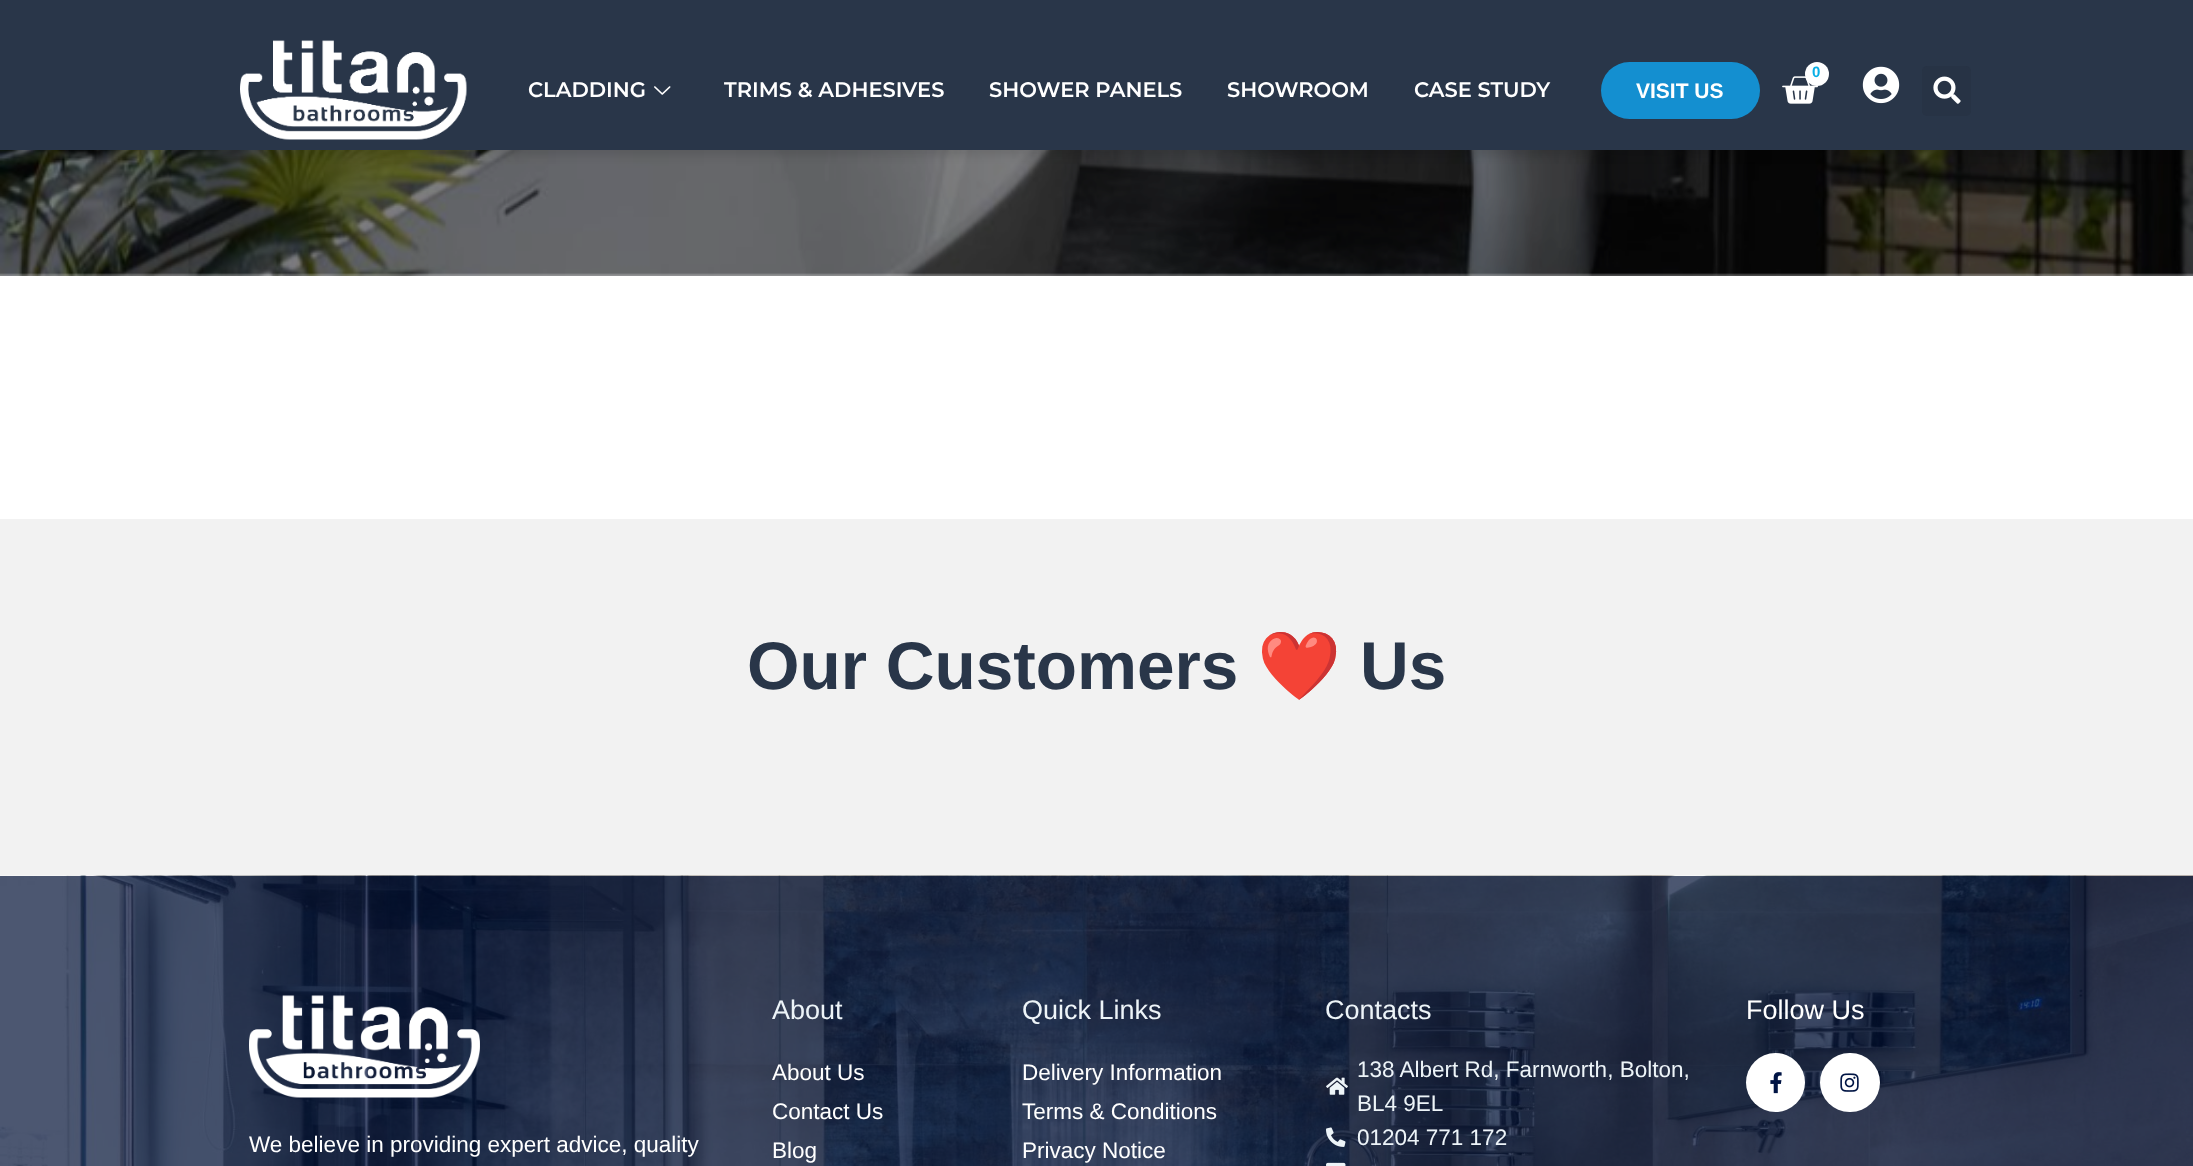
<svg xmlns="http://www.w3.org/2000/svg" width="2193" height="1166" viewBox="0 0 2193 1166">
  <rect width="100%" height="100%" fill="rgb(255,255,255)"/>
  <image x="0" y="150" width="2193" height="126" href="pic6.png"/>
  <rect x="0" y="6" width="2193" height="150" fill="rgba(0,0,0,0.1)" filter="blur(4.5px)"/>
  <rect x="0" y="0" width="2193" height="150" fill="rgb(41,54,73)"/>
  <image x="240" y="40" width="227" height="100" href="pic1.png"/>
  <image x="1782" y="76" width="36" height="28" href="pic2.png"/>
  <circle cx="1817" cy="74" r="12" fill="rgb(255,255,255)"/>
  <text x="1812" y="77" font-family="Liberation Sans" font-size="15" font-weight="bold" fill="rgb(8,175,230)">0</text>
  <image x="1862" y="66" width="38" height="38" href="pic3.png"/>
  <rect x="1922" y="66" width="49" height="50" rx="5" fill="rgb(39,51,69)"/>
  <image x="1933" y="76" width="28" height="28" href="pic4.png"/>
  <text x="528" y="97" font-family="Montserrat" font-size="21" font-weight="600" fill="rgb(255,255,255)">CLADDING</text>
  <image x="654" y="86" width="17" height="9" href="pic5.png"/>
  <g font-family="Montserrat" font-size="21" font-weight="600" fill="rgb(255,255,255)">
    <text x="724" y="97">TRIMS &amp; ADHESIVES</text>
    <text x="989" y="97">SHOWER PANELS</text>
    <text x="1227" y="97">SHOWROOM</text>
    <text x="1414" y="97">CASE STUDY</text>
  </g>
  <rect x="1601" y="62" width="159" height="57" rx="28.5" fill="rgb(20,143,208)"/>
  <text x="1636" y="98" font-family="Liberation Sans" font-size="21" font-weight="bold" fill="rgb(255,255,255)">VISIT US</text>
  <rect x="0" y="519" width="2193" height="357" fill="rgb(242,242,242)"/>
  <text x="747" y="689" font-family="Liberation Sans" font-size="67.5" font-weight="bold" fill="rgb(41,54,73)">Our Customers</text>
  <text x="1257" y="689" font-family="Noto Color Emoji" font-size="67.5" font-weight="bold" fill="rgb(41,54,73)">❤️</text>
  <text x="1360" y="689" font-family="Liberation Sans" font-size="67.5" font-weight="bold" fill="rgb(41,54,73)">Us</text>
  <image x="0" y="875" width="2193" height="291" href="pic7.png"/>
  <image x="249" y="995" width="231" height="103" href="pic8.png"/>
  <text x="249" y="1152" font-family="Liberation Sans" font-size="22.5" fill="rgb(255,255,255)">We believe in providing expert advice, quality</text>
  <text x="772" y="1019" font-family="Liberation Sans" font-size="27" fill="rgb(237,244,248)">About</text>
  <g font-family="Liberation Sans" font-size="22.5" fill="rgb(255,255,255)">
    <text>
      <tspan x="772" y="1080">About Us</tspan>
      <tspan x="772" y="1119">Contact Us</tspan>
      <tspan x="772" y="1158">Blog</tspan>
    </text>
  </g>
  <text x="1022" y="1019" font-family="Liberation Sans" font-size="27" fill="rgb(237,244,248)">Quick Links</text>
  <g font-family="Liberation Sans" font-size="22.5" fill="rgb(255,255,255)">
    <text>
      <tspan x="1022" y="1080">Delivery Information</tspan>
      <tspan x="1022" y="1119">Terms &amp; Conditions</tspan>
      <tspan x="1022" y="1158">Privacy Notice</tspan>
    </text>
  </g>
  <text x="1325" y="1019" font-family="Liberation Sans" font-size="27" fill="rgb(237,244,248)">Contacts</text>
  <image x="1326" y="1077" width="22" height="18" href="pic9.png"/>
  <g font-family="Liberation Sans" font-size="22.5" fill="rgb(237,244,248)">
    <text>
      <tspan x="1357" y="1077">138 Albert Rd, Farnworth, Bolton,</tspan>
      <tspan x="1357" y="1111">BL4 9EL</tspan>
    </text>
  </g>
  <image x="1326" y="1127" width="20" height="20" href="pic10.png"/>
  <text x="1357" y="1145" font-family="Liberation Sans" font-size="22.5" fill="rgb(237,244,248)">01204 771 172</text>
  <image x="1326" y="1162" width="20" height="4" href="pic11.png"/>
  <text x="1746" y="1019" font-family="Liberation Sans" font-size="27" fill="rgb(255,255,255)">Follow Us</text>
  <circle cx="1775.5" cy="1082.5" r="29.5" fill="rgb(255,255,255)"/>
  <image x="1770" y="1072" width="12" height="22" href="pic12.png"/>
  <rect x="1820" y="1053" width="60" height="59" rx="29.5" fill="rgb(255,255,255)"/>
  <image x="1840" y="1073" width="19" height="19" href="pic13.png"/>
</svg>
